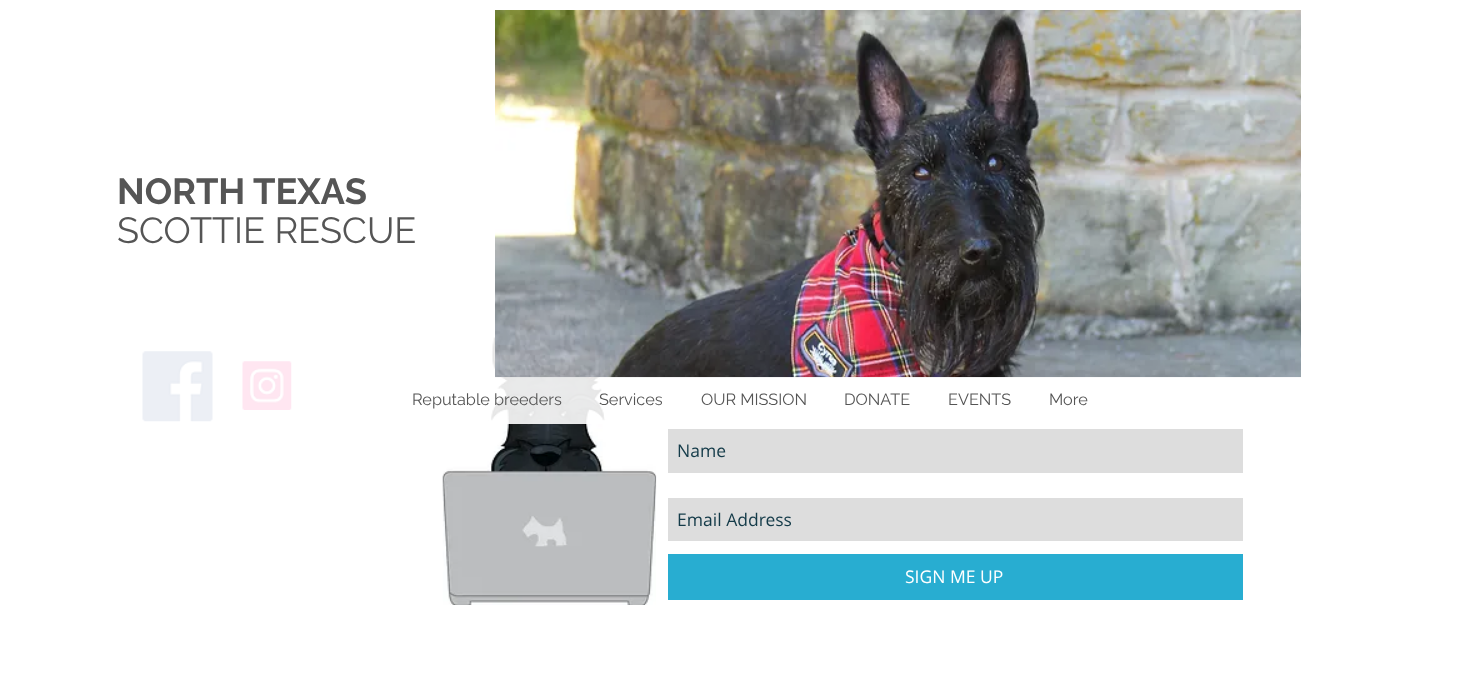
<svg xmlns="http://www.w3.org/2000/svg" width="1458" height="682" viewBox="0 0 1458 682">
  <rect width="100%" height="100%" fill="rgb(255,255,255)"/>
  <text x="117" y="204" font-family="Raleway" font-size="36.25" font-weight="bold" fill="rgb(85,85,85)">NORTH TEXAS</text>
  <text x="117" y="243" font-family="Raleway" font-size="36.25" fill="rgb(85,85,85)">SCOTTIE RESCUE</text>
  <image x="142" y="351" width="71" height="71" href="pic2.png"/>
  <image x="242" y="361" width="50" height="49" href="pic3.png"/>
  <image x="442" y="336" width="215" height="269" href="pic4.png"/>
  <rect x="142" y="336" width="466" height="88" fill="rgba(255,255,255,0.9)"/>
  <image x="495" y="10" width="806" height="368" href="pic1.png"/>
  <g font-family="Raleway" font-size="16.25" fill="rgb(85,85,85)">
    <text x="412" y="405">Reputable breeders</text>
    <text x="599" y="405">Services</text>
    <text x="701" y="405">OUR MISSION</text>
    <text x="844" y="405">DONATE</text>
    <text x="948" y="405">EVENTS</text>
    <text x="1049" y="405">More</text>
  </g>
  <rect x="668" y="429" width="575" height="44" fill="rgb(221,221,221)"/>
  <text x="677" y="457" font-family="Open Sans" font-size="17.5" fill="rgb(20,59,73)">Name</text>
  <rect x="668" y="498" width="575" height="43" fill="rgb(221,221,221)"/>
  <text x="677" y="526" font-family="Open Sans" font-size="17.5" fill="rgb(20,59,73)">Email Address</text>
  <rect x="668" y="554" width="575" height="46" fill="rgb(40,173,209)"/>
  <text x="905" y="583" font-family="Open Sans" font-size="17.5" fill="rgb(255,255,255)">SIGN ME UP</text>
</svg>
